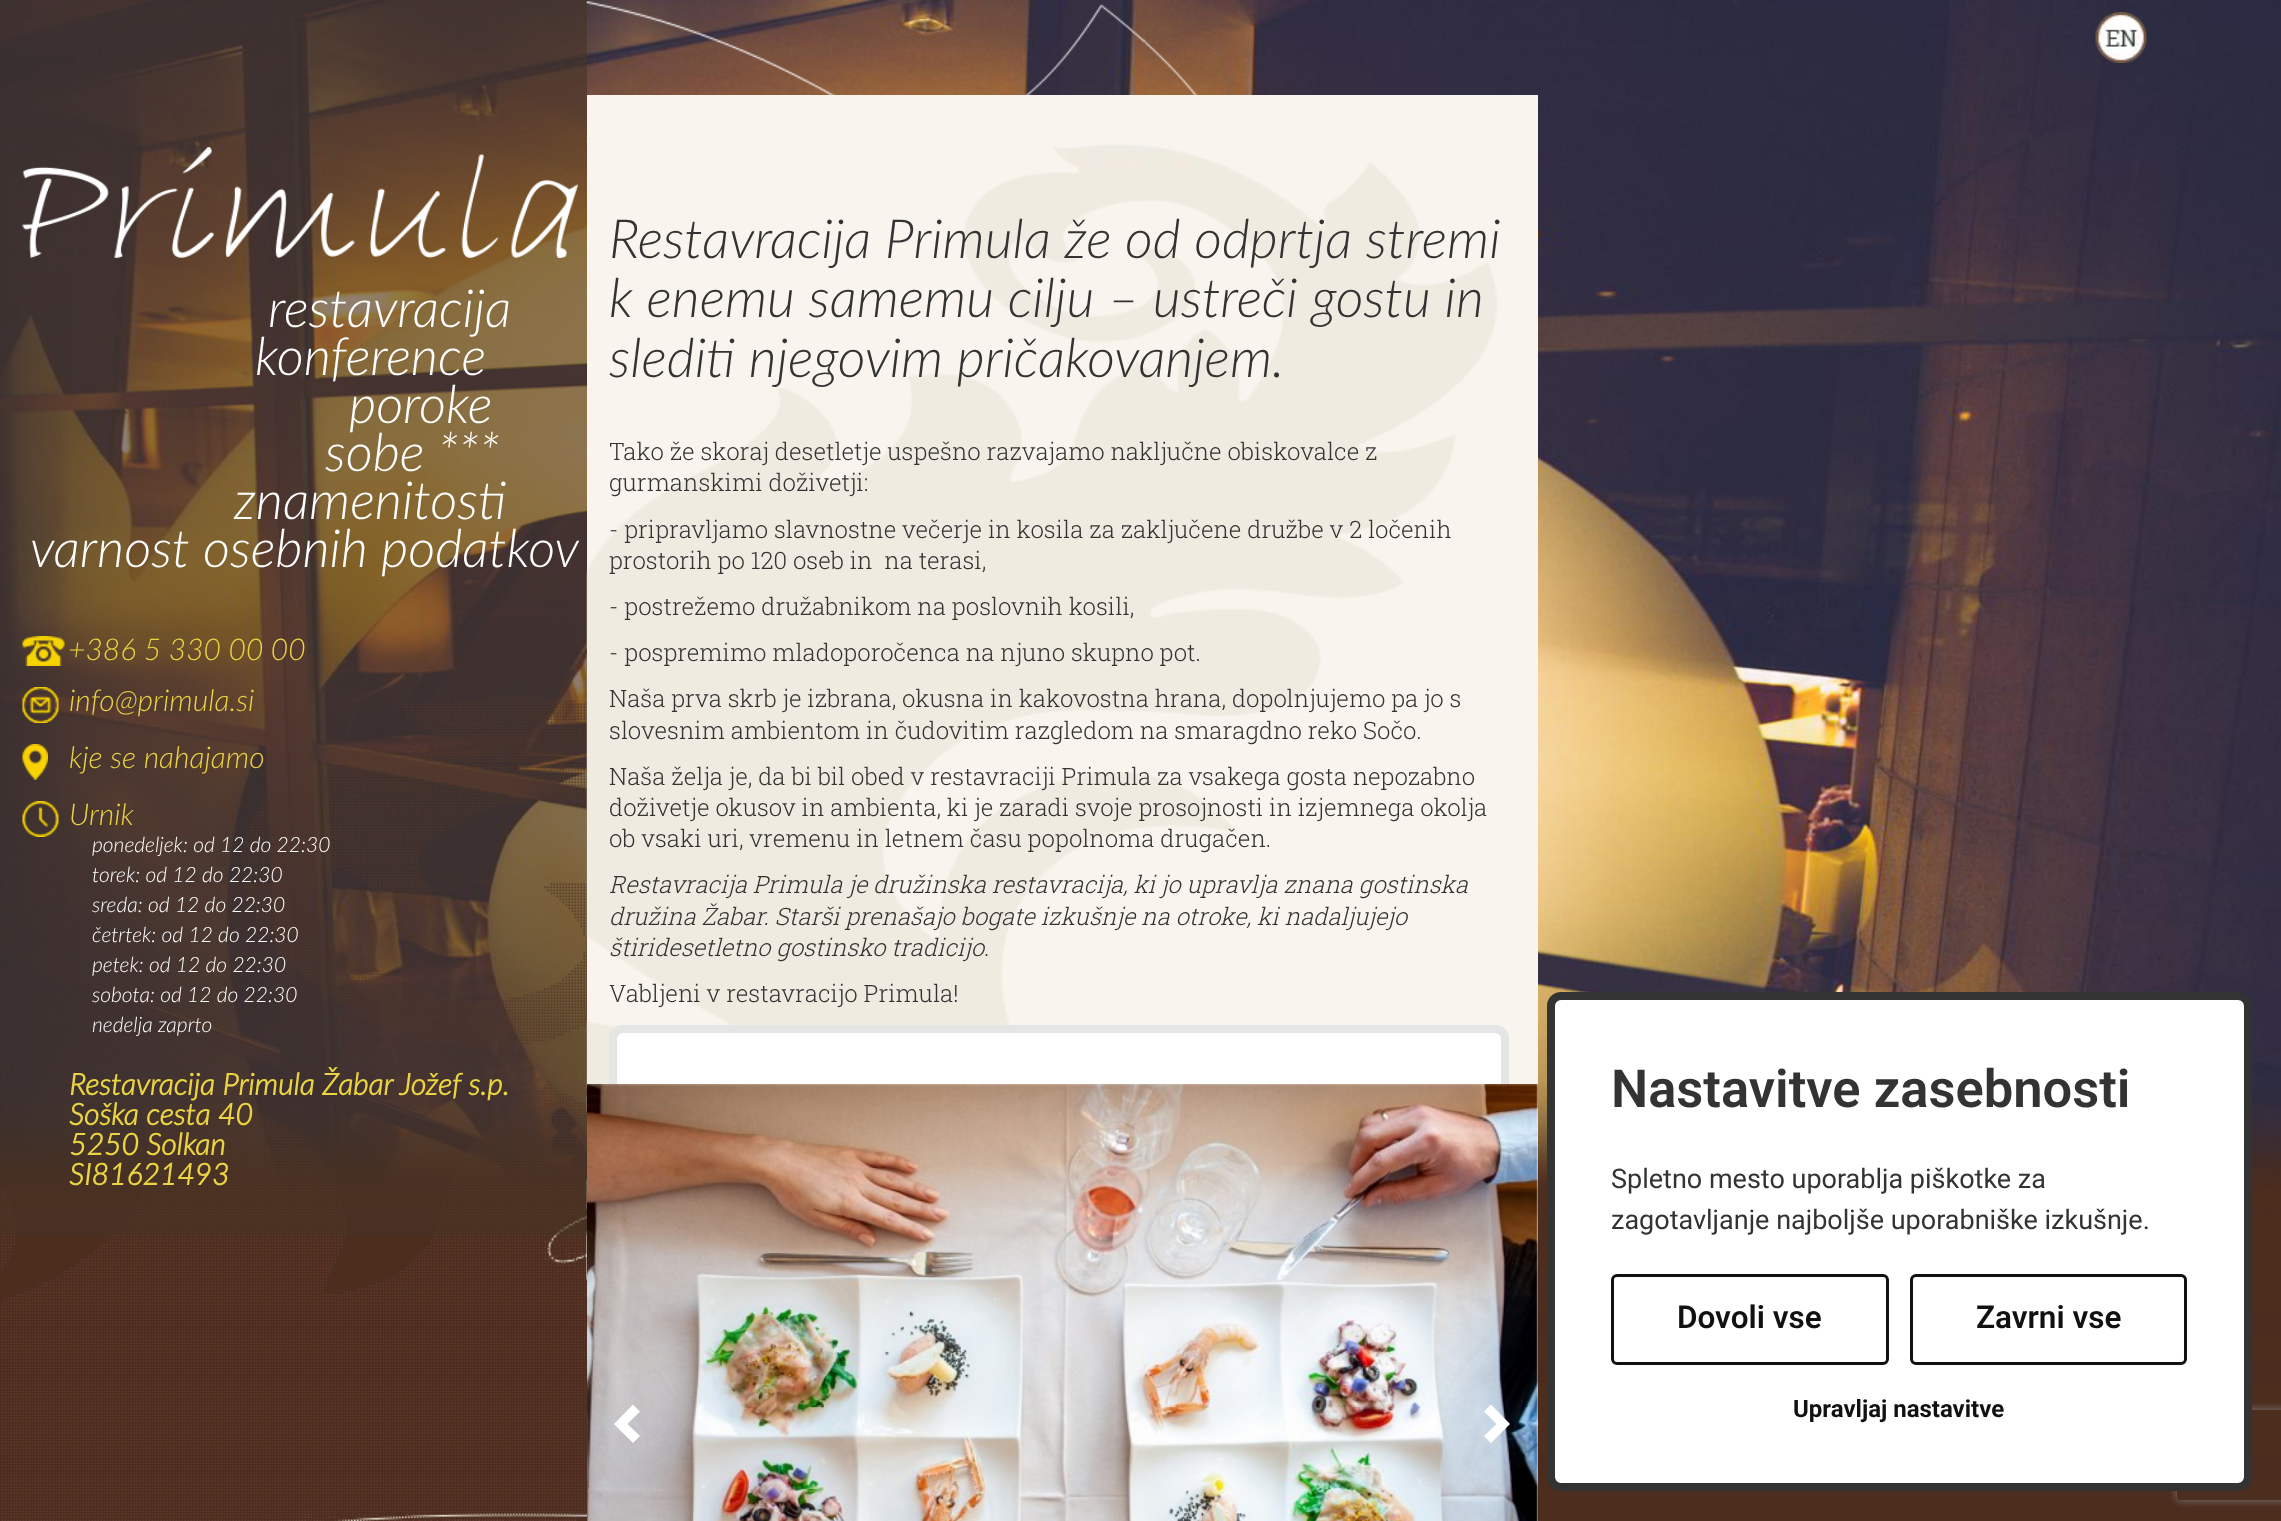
<svg xmlns="http://www.w3.org/2000/svg" width="2281" height="1521" viewBox="0 0 2281 1521">
  <defs>
    <clipPath id="clip1"><path d="M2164 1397H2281V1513H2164ZM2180 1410H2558C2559.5 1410 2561 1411.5 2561 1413V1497C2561 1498.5 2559.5 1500 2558 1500H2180C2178.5 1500 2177 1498.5 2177 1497V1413C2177 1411.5 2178.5 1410 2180 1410Z" clip-rule="evenodd"/></clipPath>
  </defs>
  <rect width="100%" height="100%" fill="rgb(255,255,255)"/>
  <image x="0" y="0" width="2281" height="1190" href="pic1.png"/>
  <image x="0" y="1086" width="2281" height="435" href="pic3.png"/>
  <image x="1" y="1" width="1197" height="1520" href="pic2.png"/>
  <image x="2095" y="12" width="52" height="51" href="pic4.png"/>
  <rect x="587" y="95" width="951" height="1426" fill="rgb(249,245,238)"/>
  <image x="586" y="144" width="912" height="1137" href="pic10.png"/>
  <rect x="0" y="0" width="587" height="1235" fill="rgba(70,51,37,0.6)"/>
  <image x="22" y="147" width="556" height="111" href="pic5.png"/>
  <g font-family="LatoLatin" font-size="52.6" font-weight="300" font-style="italic" fill="rgb(255,255,255)">
    <text x="268" y="327">restavracija</text>
    <text x="255" y="375">konference</text>
    <text x="349" y="423">poroke</text>
    <text x="325" y="471">sobe ***</text>
    <text x="234" y="519">znamenitosti</text>
    <text x="30" y="567">varnost osebnih podatkov</text>
  </g>
  <image x="22" y="636" width="43" height="30" href="pic6.png"/>
  <text x="68" y="660" font-family="LatoLatin" font-size="30" font-weight="300" font-style="italic" fill="rgb(234,212,67)">+386 5 330 00 00</text>
  <image x="22" y="687" width="37" height="36" href="pic7.png"/>
  <text x="69" y="711" font-family="LatoLatin" font-size="30" font-weight="300" font-style="italic" fill="rgb(234,212,67)">info@primula.si</text>
  <image x="22" y="744" width="26" height="36" href="pic8.png"/>
  <text x="69" y="768" font-family="LatoLatin" font-size="30" font-weight="300" font-style="italic" fill="rgb(234,212,67)">kje se nahajamo</text>
  <image x="22" y="801" width="37" height="36" href="pic9.png"/>
  <text x="69" y="825" font-family="LatoLatin" font-size="30" font-weight="300" font-style="italic" fill="rgb(234,212,67)">Urnik</text>
  <g font-family="LatoLatin" font-size="21" font-weight="300" font-style="italic" fill="rgb(255,255,255)">
    <text>
      <tspan x="92" y="852">ponedeljek: od 12 do 22:30</tspan>
      <tspan x="92" y="882">torek: od 12 do 22:30</tspan>
      <tspan x="92" y="912">sreda: od 12 do 22:30</tspan>
      <tspan x="92" y="942">četrtek: od 12 do 22:30</tspan>
      <tspan x="92" y="972">petek: od 12 do 22:30</tspan>
      <tspan x="92" y="1002">sobota: od 12 do 22:30</tspan>
      <tspan x="92" y="1032">nedelja zaprto</tspan>
    </text>
  </g>
  <g font-family="LatoLatin" font-size="30" font-weight="bold" font-style="italic" fill="rgb(234,212,67)">
    <text>
      <tspan x="69" y="1095">Restavracija Primula Žabar Jožef s.p.</tspan>
      <tspan x="69" y="1125">Soška cesta 40</tspan>
      <tspan x="69" y="1155">5250 Solkan</tspan>
      <tspan x="69" y="1185">SI81621493</tspan>
    </text>
  </g>
  <g font-family="LatoLatin" font-size="54" font-weight="300" font-style="italic" fill="rgb(51,51,51)">
    <text>
      <tspan x="609" y="258">Restavracija Primula že od odprtja stremi</tspan>
      <tspan x="609" y="317">k enemu samemu cilju – ustreči gostu in</tspan>
      <tspan x="609" y="377">slediti njegovim pričakovanjem.</tspan>
    </text>
  </g>
  <g font-family="Roboto Slab" font-size="24" font-weight="300" fill="rgb(51,51,51)">
    <text xml:space="preserve"><tspan x="609" y="460">Tako že skoraj desetletje uspešno razvajamo naključne obiskovalce z</tspan><tspan x="609" y="491">gurmanskimi doživetji:</tspan><tspan x="609" y="538">- pripravljamo slavnostne večerje in kosila za zaključene družbe v 2 ločenih</tspan><tspan x="609" y="569">prostorih po 120 oseb in  na terasi,</tspan><tspan x="609" y="615">- postrežemo družabnikom na poslovnih kosili,</tspan><tspan x="609" y="661">- pospremimo mladoporočenca na njuno skupno pot.</tspan><tspan x="609" y="707">Naša prva skrb je izbrana, okusna in kakovostna hrana, dopolnjujemo pa jo s</tspan><tspan x="609" y="739">slovesnim ambientom in čudovitim razgledom na smaragdno reko Sočo.</tspan><tspan x="609" y="785">Naša želja je, da bi bil obed v restavraciji Primula za vsakega gosta nepozabno</tspan><tspan x="609" y="816">doživetje okusov in ambienta, ki je zaradi svoje prosojnosti in izjemnega okolja</tspan><tspan x="609" y="847">ob vsaki uri, vremenu in letnem času popolnoma drugačen.</tspan></text>
  </g>
  <g font-family="Roboto Slab" font-size="24" font-weight="300" font-style="italic" fill="rgb(51,51,51)">
    <text>
      <tspan x="609" y="893">Restavracija Primula je družinska restavracija, ki jo upravlja znana gostinska</tspan>
      <tspan x="609" y="925">družina Žabar. Starši prenašajo bogate izkušnje na otroke, ki nadaljujejo</tspan>
      <tspan x="609" y="956">štiridesetletno gostinsko tradicijo</tspan>
    </text>
  </g>
  <g font-family="Roboto Slab" font-size="24" font-weight="300" fill="rgb(51,51,51)">
    <text x="984" y="956">.</text>
    <text x="609" y="1002">Vabljeni v restavracijo Primula!</text>
  </g>
  <rect x="613" y="1029" width="892" height="442" rx="10" fill="none" stroke="rgb(229,229,229)" stroke-width="8"/>
  <rect x="613" y="1029" width="892" height="442" rx="10" fill="rgb(255,255,255)" stroke="rgb(229,229,229)" stroke-width="8"/>
  <image x="587" y="1084" width="951" height="437" href="pic11.png"/>
  <path d="M640 1411.5L627.5 1424L640 1436L633 1443L614 1424L633 1404.5Z" fill="rgb(255,255,255)"/>
  <path d="M1510 1424L1491 1443L1484 1436L1496.5 1424L1484 1411.5L1491 1404.5Z" fill="rgb(255,255,255)"/>
  <g clip-path="url(#clip1)">
    <rect x="2177" y="1410" width="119" height="90" rx="3" fill="rgb(128,128,128)" filter="blur(4px)"/>
  </g>
  <rect x="1551" y="996" width="697" height="491" rx="10" fill="rgb(255,255,255)" stroke="rgb(51,51,51)" stroke-width="8"/>
  <text x="1611" y="1107" font-family="Roboto" font-size="52.5" font-weight="600" fill="rgb(51,51,51)">Nastavitve zasebnosti</text>
  <g font-family="Roboto" font-size="27" fill="rgb(51,51,51)">
    <text>
      <tspan x="1611" y="1188">Spletno mesto uporablja piškotke za</tspan>
      <tspan x="1611" y="1229">zagotavljanje najboljše uporabniške izkušnje.</tspan>
    </text>
  </g>
  <rect x="1612.5" y="1275.5" width="275" height="88" rx="4.5" fill="none" stroke="rgb(17,17,17)" stroke-width="3"/>
  <text x="1677" y="1328" font-family="Roboto" font-size="31.5" font-weight="600" fill="rgb(17,17,17)">Dovoli vse</text>
  <rect x="1911.5" y="1275.5" width="274" height="88" rx="4.5" fill="none" stroke="rgb(17,17,17)" stroke-width="3"/>
  <text x="1976" y="1328" font-family="Roboto" font-size="31.5" font-weight="600" fill="rgb(17,17,17)">Zavrni vse</text>
  <text x="1793" y="1417" font-family="Roboto" font-size="24" font-weight="bold" fill="rgb(17,17,17)">Upravljaj nastavitve</text>
</svg>
